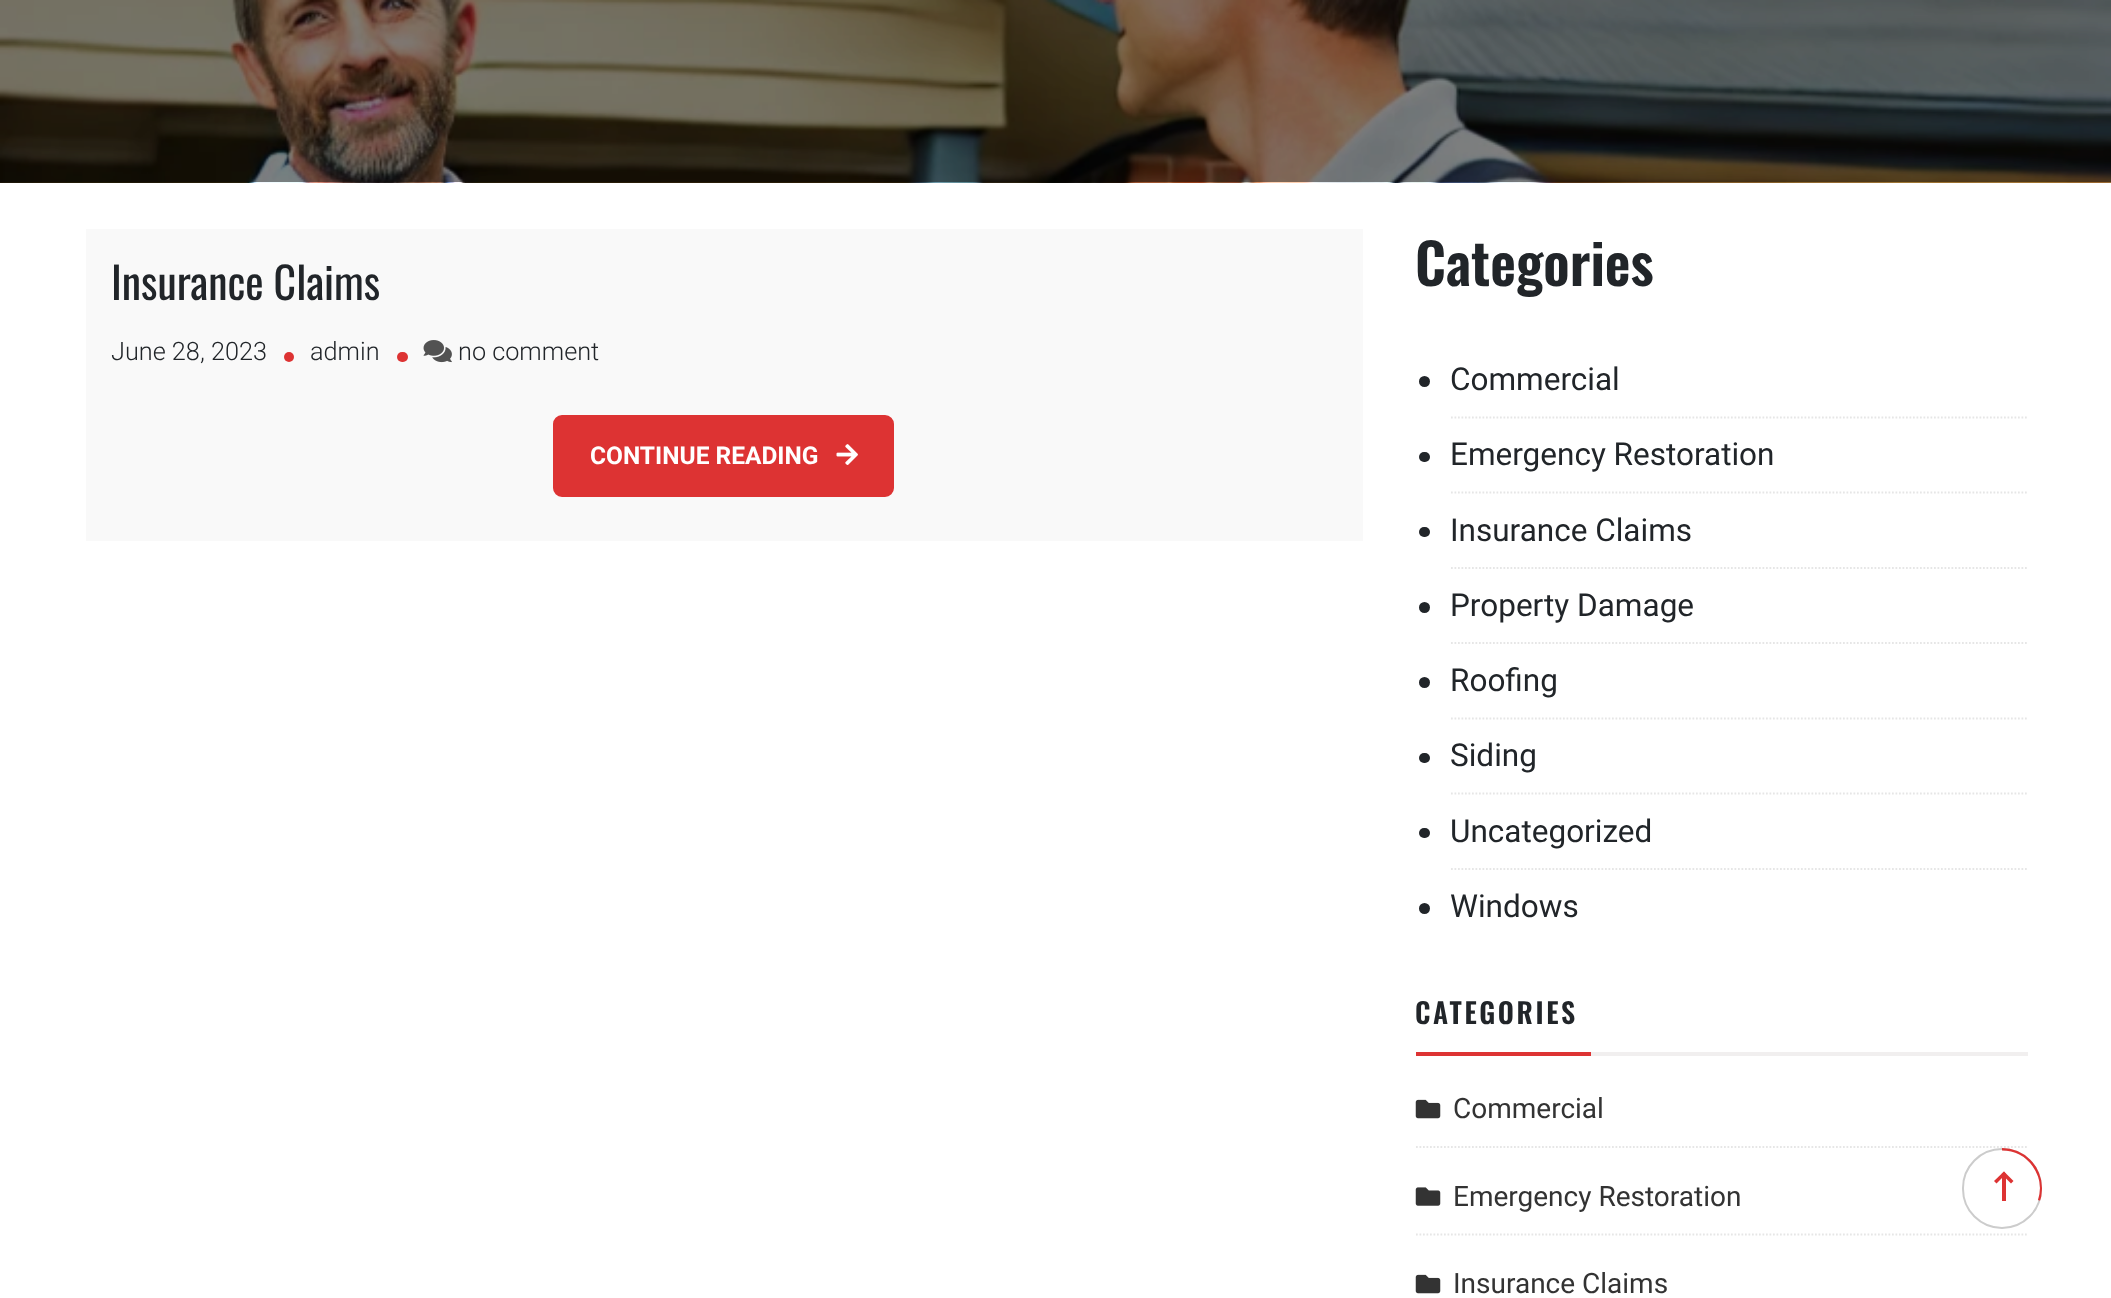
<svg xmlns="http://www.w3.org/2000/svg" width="2111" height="1298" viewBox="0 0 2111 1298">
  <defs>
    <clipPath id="clip1"><rect x="1962" y="1148" width="80" height="81" rx="40"/></clipPath>
  </defs>
  <rect width="100%" height="100%" fill="rgb(255,255,255)"/>
  <image x="0" y="0" width="2111" height="183" href="pic1.png"/>
  <rect x="86" y="229" width="1277" height="312" fill="rgb(249,249,249)"/>
  <text x="111" y="300" font-family="Oswald" font-size="43.75" fill="rgb(33,37,41)">Insurance Claims</text>
  <text x="111" y="360" font-family="Roboto" font-size="25.25" font-weight="300" fill="rgb(33,37,41)">June 28, 2023</text>
  <circle cx="289" cy="357" r="5" fill="rgb(221,51,51)"/>
  <text x="310" y="360" font-family="Roboto" font-size="25.25" font-weight="300" fill="rgb(33,37,41)">admin</text>
  <rect x="397" y="352" width="11" height="10" rx="5" fill="rgb(221,51,51)"/>
  <image x="423" y="340" width="29" height="23" href="pic2.png"/>
  <text x="458" y="360" font-family="Roboto" font-size="25.25" font-weight="300" fill="rgb(33,37,41)">no comment</text>
  <rect x="554" y="416" width="339" height="80" rx="8" fill="rgb(221,51,51)" stroke="rgb(221,51,51)" stroke-width="2"/>
  <text x="590" y="464" font-family="Roboto" font-size="24.5" font-weight="bold" fill="rgb(255,255,255)">CONTINUE READING</text>
  <image x="836" y="444" width="22" height="21" href="pic3.png"/>
  <text x="1415" y="286" font-family="Oswald" font-size="56" font-weight="600" fill="rgb(33,37,41)">Categories</text>
  <path d="M1451 417.5H2028" fill="none" stroke="rgb(230,230,230)" stroke-width="1.8" stroke-dasharray="1.75 1.75"/>
  <circle cx="1424.5" cy="381.5" r="5.5" fill="rgb(33,37,41)"/>
  <text x="1450" y="390" font-family="Roboto" font-size="31.5" fill="rgb(33,37,41)">Commercial</text>
  <path d="M1451 492.5H2028" fill="none" stroke="rgb(230,230,230)" stroke-width="1.8" stroke-dasharray="1.75 1.75"/>
  <rect x="1419" y="452" width="11" height="10" rx="5" fill="rgb(33,37,41)"/>
  <text x="1450" y="465" font-family="Roboto" font-size="31.5" fill="rgb(33,37,41)">Emergency Restoration</text>
  <path d="M1451 568H2028" fill="none" stroke="rgb(230,230,230)" stroke-width="1.8" stroke-dasharray="1.75 1.75"/>
  <rect x="1419" y="527" width="11" height="10" rx="5" fill="rgb(33,37,41)"/>
  <text x="1450" y="541" font-family="Roboto" font-size="31.5" fill="rgb(33,37,41)">Insurance Claims</text>
  <path d="M1451 643H2028" fill="none" stroke="rgb(230,230,230)" stroke-width="1.8" stroke-dasharray="1.75 1.75"/>
  <circle cx="1424.5" cy="607.5" r="5.5" fill="rgb(33,37,41)"/>
  <text x="1450" y="616" font-family="Roboto" font-size="31.5" fill="rgb(33,37,41)">Property Damage</text>
  <path d="M1451 718.5H2028" fill="none" stroke="rgb(230,230,230)" stroke-width="1.8" stroke-dasharray="1.75 1.75"/>
  <circle cx="1424.5" cy="682.5" r="5.5" fill="rgb(33,37,41)"/>
  <text x="1450" y="691" font-family="Roboto" font-size="31.5" fill="rgb(33,37,41)">Roofing</text>
  <path d="M1451 793.5H2028" fill="none" stroke="rgb(230,230,230)" stroke-width="1.8" stroke-dasharray="1.75 1.75"/>
  <rect x="1419" y="753" width="11" height="10" rx="5" fill="rgb(33,37,41)"/>
  <text x="1450" y="766" font-family="Roboto" font-size="31.5" fill="rgb(33,37,41)">Siding</text>
  <path d="M1451 869H2028" fill="none" stroke="rgb(230,230,230)" stroke-width="1.8" stroke-dasharray="1.75 1.75"/>
  <rect x="1419" y="828" width="11" height="10" rx="5" fill="rgb(33,37,41)"/>
  <text x="1450" y="842" font-family="Roboto" font-size="31.5" fill="rgb(33,37,41)">Uncategorized</text>
  <circle cx="1424.5" cy="908.5" r="5.5" fill="rgb(33,37,41)"/>
  <text x="1450" y="917" font-family="Roboto" font-size="31.5" fill="rgb(33,37,41)">Windows</text>
  <rect x="1591" y="1052" width="437" height="4" fill="rgb(241,239,239)"/>
  <text x="1415" y="1024" font-family="Oswald" font-size="28" font-weight="600" letter-spacing="2.6" fill="rgb(33,37,41)">CATEGORIES</text>
  <rect x="1416" y="1052" width="175" height="4" fill="rgb(221,51,51)"/>
  <path d="M1416 1147H2028" fill="none" stroke="rgb(230,230,230)" stroke-width="1.8" stroke-dasharray="1.75 1.75"/>
  <image x="1415" y="1099" width="26" height="20" href="pic4.png"/>
  <text x="1453" y="1118" font-family="Roboto" font-size="28" fill="rgb(51,51,51)">Commercial</text>
  <path d="M1416 1234.5H2028" fill="none" stroke="rgb(230,230,230)" stroke-width="1.8" stroke-dasharray="1.75 1.75"/>
  <image x="1415" y="1187" width="26" height="19" href="pic5.png"/>
  <text x="1453" y="1206" font-family="Roboto" font-size="28" fill="rgb(51,51,51)">Emergency Restoration</text>
  <image x="1415" y="1274" width="26" height="20" href="pic4.png"/>
  <text x="1453" y="1293" font-family="Roboto" font-size="28" fill="rgb(51,51,51)">Insurance Claims</text>
  <rect x="1963" y="1149" width="78" height="79" rx="39" fill="none" stroke="rgb(204,204,204)" stroke-width="2"/>
  <g clip-path="url(#clip1)">
    <path d="M2002 1149C2029 1149 2047.5 1175.5 2039.5 1200.5" fill="none" stroke="rgb(221,51,51)" stroke-width="3.2"/>
  </g>
  <path d="M2006 1174L1996.5 1183.5L1994 1181L2004 1171.5Z" fill="rgb(221,51,51)"/>
  <path d="M2013.5 1181L2011 1183.5L2001.5 1174L2004 1171.5Z" fill="rgb(221,51,51)"/>
  <rect x="2002" y="1176" width="4" height="25" fill="rgb(221,51,51)"/>
</svg>
